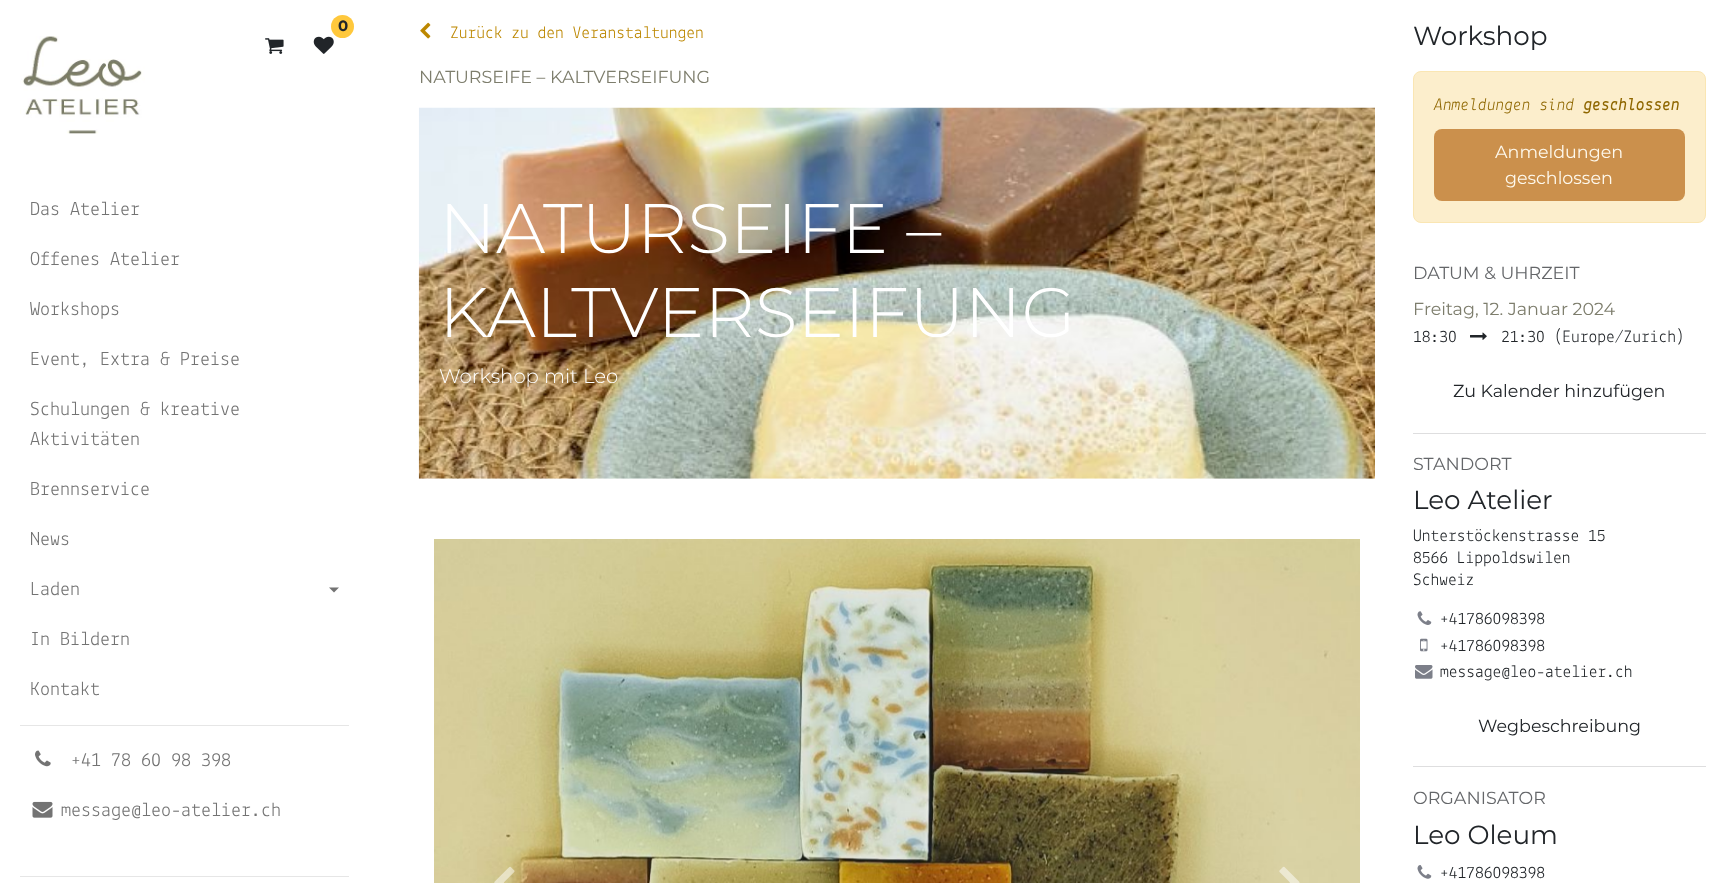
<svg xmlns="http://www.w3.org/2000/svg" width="1725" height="883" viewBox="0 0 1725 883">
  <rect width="100%" height="100%" fill="rgb(255,255,255)"/>
  <image x="313" y="36" width="21" height="18" href="pic1.png"/>
  <circle cx="342.5" cy="26.5" r="11.5" fill="rgb(255,200,60)"/>
  <text x="338" y="31" font-family="Montserrat" font-size="15" font-weight="bold" fill="rgb(33,37,41)">0</text>
  <image x="265" y="38" width="19" height="16" href="pic2.png"/>
  <image x="20" y="36" width="125" height="98" href="pic3.png"/>
  <g font-family="Lekton" font-size="20" fill="rgb(115,115,115)">
    <text x="30" y="215">Das Atelier</text>
    <text x="30" y="265">Offenes Atelier</text>
    <text x="30" y="315">Workshops</text>
    <text x="30" y="365">Event, Extra &amp; Preise</text>
    <text>
      <tspan x="30" y="415">Schulungen &amp; kreative</tspan>
      <tspan x="30" y="445">Aktivitäten</tspan>
    </text>
    <text x="30" y="495">Brennservice</text>
    <text x="30" y="545">News</text>
    <text x="30" y="595">Laden</text>
  </g>
  <path d="M329 587.5H339L334 592.5Z" fill="rgb(115,115,115)"/>
  <g font-family="Lekton" font-size="20" fill="rgb(115,115,115)">
    <text x="30" y="645">In Bildern</text>
    <text x="30" y="695">Kontakt</text>
  </g>
  <rect x="20" y="725" width="329" height="1" fill="rgb(230,230,230)"/>
  <image x="35" y="750" width="16" height="17" href="pic4.png"/>
  <text x="71" y="766" font-family="Lekton" font-size="20" fill="rgb(115,115,115)">+41 78 60 98 398</text>
  <image x="32" y="801" width="21" height="17" href="pic5.png"/>
  <text x="61" y="816" font-family="Lekton" font-size="20" fill="rgb(115,115,115)">message@leo-atelier.ch</text>
  <rect x="20" y="876" width="329" height="1" fill="rgb(230,230,230)"/>
  <image x="420" y="22" width="11" height="17" href="pic6.png"/>
  <text x="450" y="38" font-family="Lekton" font-size="17.5" fill="rgb(188,135,0)">Zurück zu den Veranstaltungen</text>
  <text x="419" y="83" font-family="Montserrat" font-size="17.5" fill="rgb(125,125,108)">NATURSEIFE – KALTVERSEIFUNG</text>
  <image x="418" y="107" width="957" height="372" href="pic7.png"/>
  <g font-family="Montserrat" font-size="70" font-weight="300" fill="rgb(255,255,255)">
    <text>
      <tspan x="439" y="253">NATURSEIFE –</tspan>
      <tspan x="439" y="337">KALTVERSEIFUNG</tspan>
    </text>
  </g>
  <text x="439" y="383" font-family="Montserrat" font-size="19.75" font-weight="300" fill="rgb(255,255,255)">Workshop mit Leo</text>
  <image x="434" y="539" width="926" height="344" href="pic8.png"/>
  <image x="494" y="866" width="21" height="17" href="pic9.png"/>
  <image x="1279" y="866" width="21" height="17" href="pic10.png"/>
  <text x="1413" y="45" font-family="Montserrat" font-size="26.25" fill="rgb(33,37,41)">Workshop</text>
  <rect x="1413.5" y="71.5" width="292" height="151" rx="7.5" fill="rgb(252,238,204)" stroke="rgb(250,230,179)"/>
  <text x="1434" y="110" font-family="Lekton" font-size="17.5" font-style="italic" fill="rgb(143,103,0)">Anmeldungen sind</text>
  <text x="1583" y="110" font-family="Lekton" font-size="17.5" font-weight="bold" font-style="italic" fill="rgb(143,103,0)">geschlossen</text>
  <rect x="1434" y="129" width="251" height="72" rx="8" fill="rgb(203,144,76)"/>
  <g font-family="Montserrat" font-size="17.5" fill="rgb(254,249,237)">
    <text x="1495" y="158">Anmeldungen</text>
    <text x="1505" y="184">geschlossen</text>
  </g>
  <rect x="1413" y="433" width="293" height="1" fill="rgb(222,222,223)"/>
  <text x="1413" y="279" font-family="Montserrat" font-size="17.5" fill="rgb(100,102,105)">DATUM &amp; UHRZEIT</text>
  <text x="1413" y="315" font-family="Montserrat" font-size="17.5" fill="rgb(125,125,108)">Freitag, 12. Januar 2024</text>
  <text x="1413" y="342" font-family="Lekton" font-size="17.5" fill="rgb(33,37,41)">18:30</text>
  <image x="1470" y="332" width="17" height="8" href="pic11.png"/>
  <text x="1501" y="342" font-family="Lekton" font-size="17.5" fill="rgb(33,37,41)">21:30 (Europe/Zurich)</text>
  <text x="1453" y="397" font-family="Montserrat" font-size="17.5" fill="rgb(33,37,41)">Zu Kalender hinzufügen</text>
  <rect x="1413" y="766" width="293" height="1" fill="rgb(222,222,223)"/>
  <text x="1413" y="470" font-family="Montserrat" font-size="17.5" fill="rgb(100,102,105)">STANDORT</text>
  <text x="1413" y="509" font-family="Montserrat" font-size="26.25" fill="rgb(33,37,41)">Leo Atelier</text>
  <g font-family="Lekton" font-size="17.5" fill="rgb(33,37,41)">
    <text>
      <tspan x="1413" y="541">Unterstöckenstrasse 15</tspan>
      <tspan x="1413" y="563">8566 Lippoldswilen</tspan>
      <tspan x="1413" y="585">Schweiz</tspan>
    </text>
  </g>
  <image x="1417" y="611" width="15" height="14" href="pic12.png"/>
  <text x="1440" y="624" font-family="Lekton" font-size="17.5" fill="rgb(33,37,41)">+41786098398</text>
  <image x="1420" y="638" width="8" height="14" href="pic13.png"/>
  <text x="1440" y="651" font-family="Lekton" font-size="17.5" fill="rgb(33,37,41)">+41786098398</text>
  <image x="1415" y="665" width="18" height="14" href="pic14.png"/>
  <text x="1440" y="677" font-family="Lekton" font-size="17.5" fill="rgb(33,37,41)">message@leo-atelier.ch</text>
  <text x="1478" y="732" font-family="Montserrat" font-size="17.5" fill="rgb(33,37,41)">Wegbeschreibung</text>
  <text x="1413" y="804" font-family="Montserrat" font-size="17.5" fill="rgb(100,102,105)">ORGANISATOR</text>
  <text x="1413" y="844" font-family="Montserrat" font-size="26.25" fill="rgb(33,37,41)">Leo Oleum</text>
  <image x="1417" y="865" width="15" height="14" href="pic15.png"/>
  <text x="1440" y="878" font-family="Lekton" font-size="17.5" fill="rgb(33,37,41)">+41786098398</text>
</svg>
